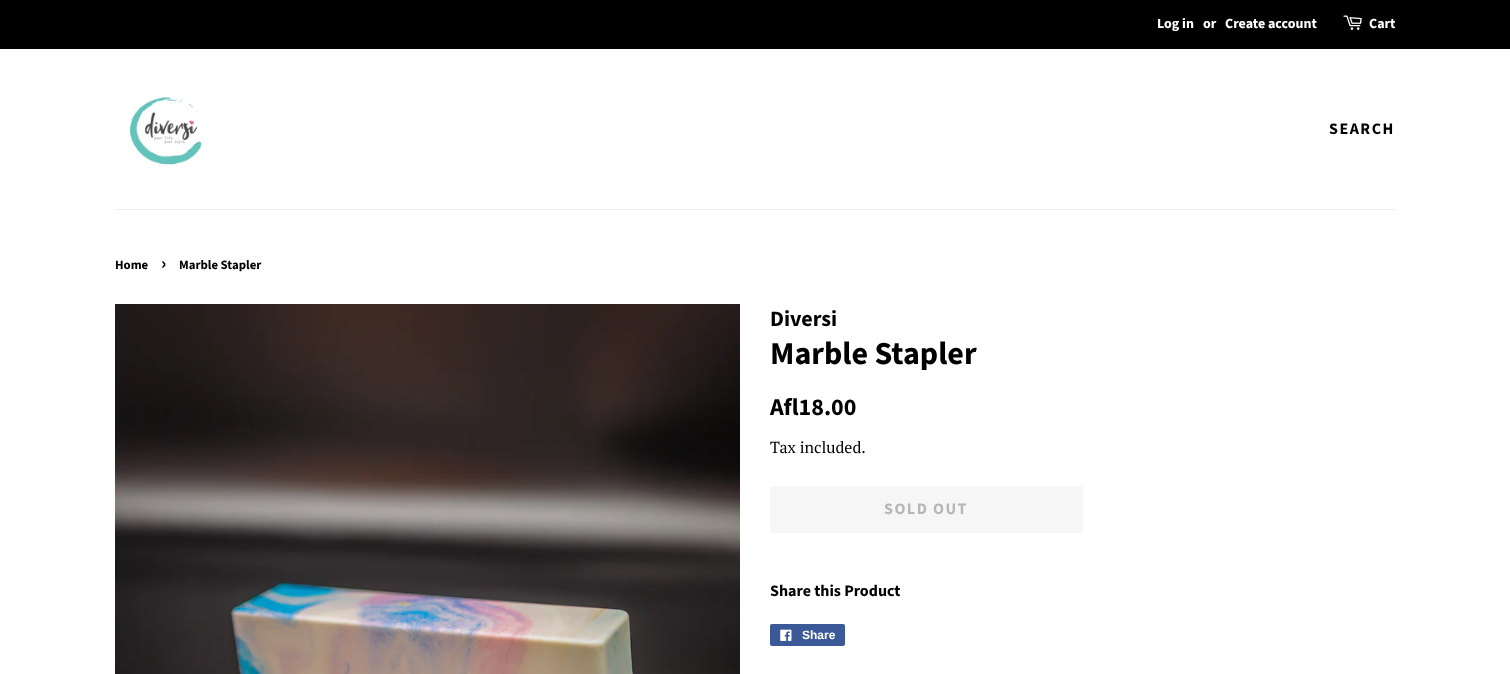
<svg xmlns="http://www.w3.org/2000/svg" width="1510" height="674" viewBox="0 0 1510 674">
  <rect width="100%" height="100%" fill="rgb(255,255,255)"/>
  <rect x="0" y="0" width="1510" height="49" fill="rgb(0,0,0)"/>
  <g font-family="Source Sans Pro" font-size="14" font-weight="bold" fill="rgb(255,255,255)">
    <text x="1157" y="28">Log in</text>
    <text x="1203" y="28">or</text>
    <text x="1225" y="28">Create account</text>
  </g>
  <image x="1343" y="15" width="19" height="15" href="pic1.png"/>
  <text x="1369" y="28" font-family="Source Sans Pro" font-size="14" font-weight="bold" fill="rgb(255,255,255)">Cart</text>
  <rect x="115" y="209" width="1280" height="1" fill="rgb(235,235,235)"/>
  <image x="128" y="96" width="75" height="70" href="pic2.png"/>
  <text x="1329" y="134" font-family="Source Sans Pro" font-size="16" font-weight="bold" letter-spacing="1.5" fill="rgb(0,0,0)">SEARCH</text>
  <text x="115" y="269" font-family="Source Sans Pro" font-size="12.75" font-weight="bold" fill="rgb(0,0,0)">Home</text>
  <text x="161" y="269" font-family="Source Sans Pro" font-size="18" font-weight="bold" fill="rgb(0,0,0)">›</text>
  <text x="179" y="269" font-family="Source Sans Pro" font-size="12.75" font-weight="bold" fill="rgb(0,0,0)">Marble Stapler</text>
  <image x="115" y="304" width="625" height="370" href="pic3.png"/>
  <text x="770" y="326" font-family="Source Sans Pro" font-size="22" font-weight="bold" fill="rgb(0,0,0)">Diversi</text>
  <text x="770" y="364" font-family="Source Sans Pro" font-size="32" font-weight="bold" fill="rgb(0,0,0)">Marble Stapler</text>
  <text x="770" y="415" font-family="Source Sans Pro" font-size="24" font-weight="bold" fill="rgb(0,0,0)">Afl18.00</text>
  <text x="770" y="453" font-family="PT Serif" font-size="16" fill="rgb(0,0,0)">Tax included.</text>
  <rect x="770" y="486" width="313" height="47" rx="2" fill="rgb(246,246,246)"/>
  <text x="884" y="514" font-family="Source Sans Pro" font-size="16" font-weight="bold" letter-spacing="1.5" fill="rgb(182,182,182)">SOLD OUT</text>
  <text x="770" y="596" font-family="Source Sans Pro" font-size="16" font-weight="bold" fill="rgb(0,0,0)">Share this Product</text>
  <rect x="770" y="624" width="75" height="22" rx="2" fill="rgb(59,89,152)"/>
  <image x="780" y="629" width="12" height="12" href="pic4.png"/>
  <text x="802" y="639" font-family="Liberation Sans" font-size="12" font-weight="bold" fill="rgb(255,255,255)">Share</text>
</svg>
